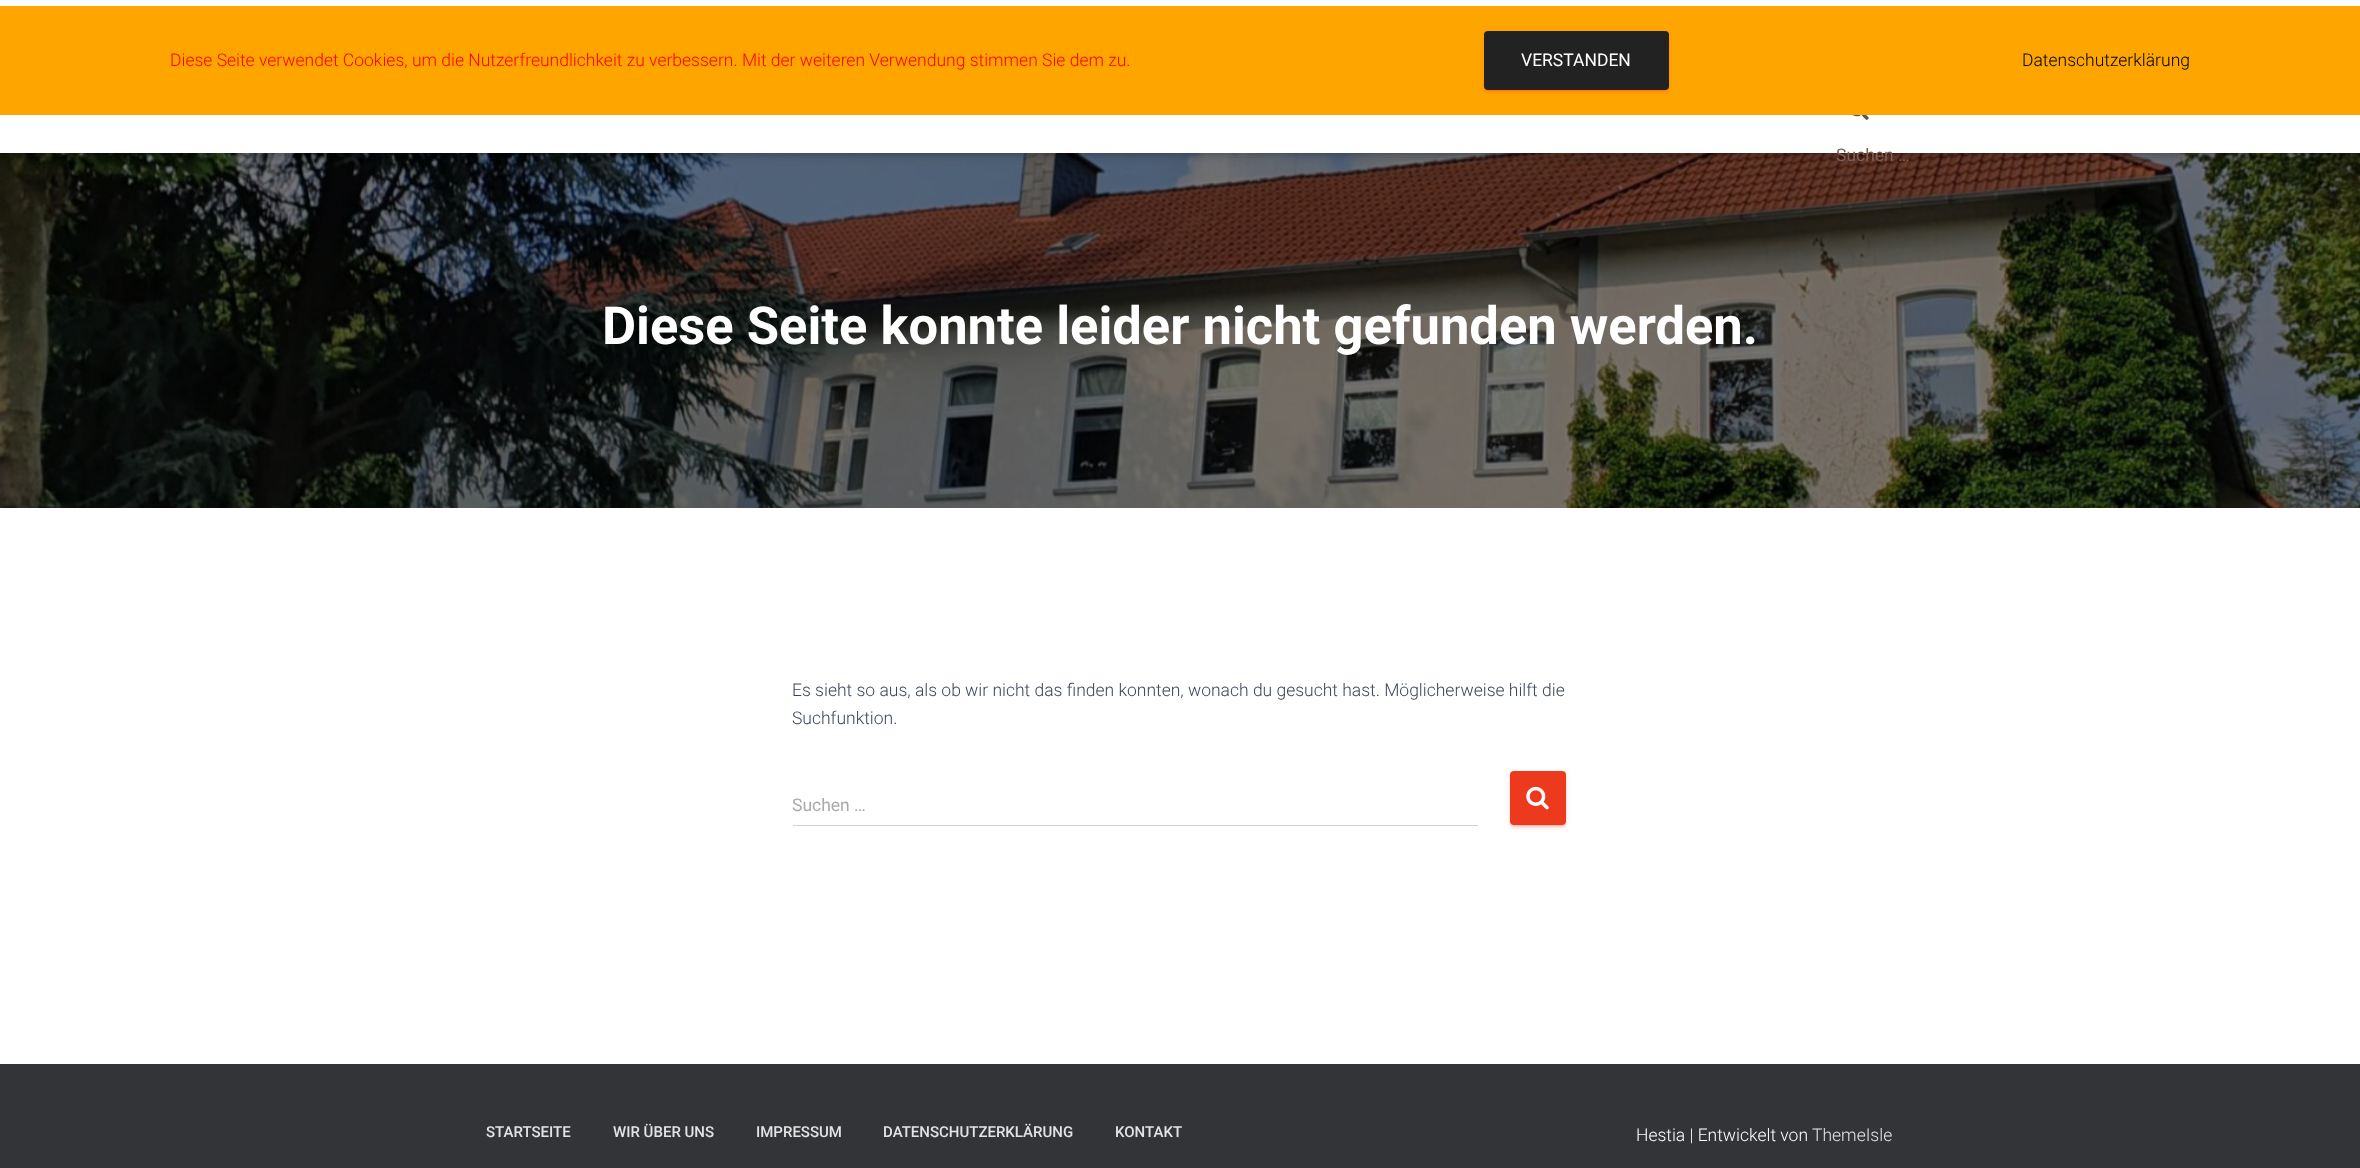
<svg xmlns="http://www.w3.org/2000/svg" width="2360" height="1168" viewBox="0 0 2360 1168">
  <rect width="100%" height="100%" fill="rgb(255,255,255)"/>
  <image x="0" y="153" width="2360" height="355" href="pic2.png"/>
  <rect x="3" y="8" width="2355" height="147" fill="rgba(0,0,0,0.1)" filter="blur(3px)"/>
  <rect x="0" y="1" width="2360" height="153" fill="rgba(0,0,0,0.12)" filter="blur(6px)"/>
  <rect x="8" y="9" width="2345" height="137" fill="rgba(0,0,0,0.42)" filter="blur(6px)"/>
  <rect x="0" y="0" width="2360" height="153" fill="rgb(255,255,255)"/>
  <rect x="0" y="6" width="2360" height="109" fill="rgb(255,165,0)"/>
  <text x="170" y="66" font-family="Roboto" font-size="17.5" font-weight="300" fill="rgb(255,0,0)">Diese Seite verwendet Cookies, um die Nutzerfreundlichkeit zu verbessern. Mit der weiteren Verwendung stimmen Sie dem zu.</text>
  <rect x="1484" y="33" width="185" height="58" rx="4" fill="rgba(237,58,30,0.12)" filter="blur(3px)"/>
  <rect x="1486" y="38" width="180" height="53" rx="1" fill="rgba(237,58,30,0.2)" filter="blur(0.5px)"/>
  <rect x="1484" y="34" width="185" height="59" rx="4" fill="rgba(237,58,30,0.14)" filter="blur(1px)"/>
  <rect x="1484" y="31" width="185" height="59" rx="4" fill="rgb(34,34,34)"/>
  <text x="1521" y="66" font-family="Roboto" font-size="17.5" fill="rgb(255,255,255)">VERSTANDEN</text>
  <text x="2022" y="66" font-family="Roboto" font-size="17.5" font-weight="300" fill="rgb(0,0,0)">Datenschutzerklärung</text>
  <image x="1852" y="115" width="17" height="5" href="pic1.png"/>
  <text x="1836" y="161" font-family="Roboto" font-size="17.5" fill="rgb(124,95,86)">Suchen …</text>
  <text x="602" y="344" font-family="Roboto" font-size="52.5" font-weight="bold" fill="rgb(255,255,255)">Diese Seite konnte leider nicht gefunden werden.</text>
  <g font-family="Roboto" font-size="17.5" font-weight="300" fill="rgb(60,72,88)">
    <text>
      <tspan x="792" y="696">Es sieht so aus, als ob wir nicht das finden konnten, wonach du gesucht hast. Möglicherweise hilft die</tspan>
      <tspan x="792" y="724">Suchfunktion.</tspan>
    </text>
  </g>
  <text x="792" y="811" font-family="Roboto" font-size="17.5" fill="rgb(170,170,170)">Suchen …</text>
  <rect x="793" y="825" width="685" height="1" fill="rgb(210,210,210)"/>
  <rect x="1510" y="773" width="56" height="53" rx="4" fill="rgba(237,58,30,0.12)" filter="blur(3px)"/>
  <rect x="1513" y="778" width="51" height="48" rx="1" fill="rgba(237,58,30,0.2)" filter="blur(0.5px)"/>
  <rect x="1510" y="774" width="56" height="54" rx="4" fill="rgba(237,58,30,0.14)" filter="blur(1px)"/>
  <rect x="1510" y="771" width="56" height="54" rx="4" fill="rgb(237,58,30)"/>
  <image x="1526" y="786" width="23" height="24" href="pic3.png"/>
  <rect x="0" y="1064" width="2360" height="104" fill="rgb(50,52,55)"/>
  <g font-family="Roboto" font-size="15" font-weight="500" fill="rgb(226,227,227)">
    <text x="486" y="1137">STARTSEITE</text>
    <text x="613" y="1137">WIR ÜBER UNS</text>
    <text x="756" y="1137">IMPRESSUM</text>
    <text x="883" y="1137">DATENSCHUTZERKLÄRUNG</text>
    <text x="1115" y="1137">KONTAKT</text>
  </g>
  <text x="1636" y="1141" font-family="Roboto" font-size="17.5" font-weight="300" fill="rgb(255,255,255)">Hestia | Entwickelt von</text>
  <text x="1812" y="1141" font-family="Roboto" font-size="17.5" font-weight="300" fill="rgb(226,227,227)">ThemeIsle</text>
</svg>
